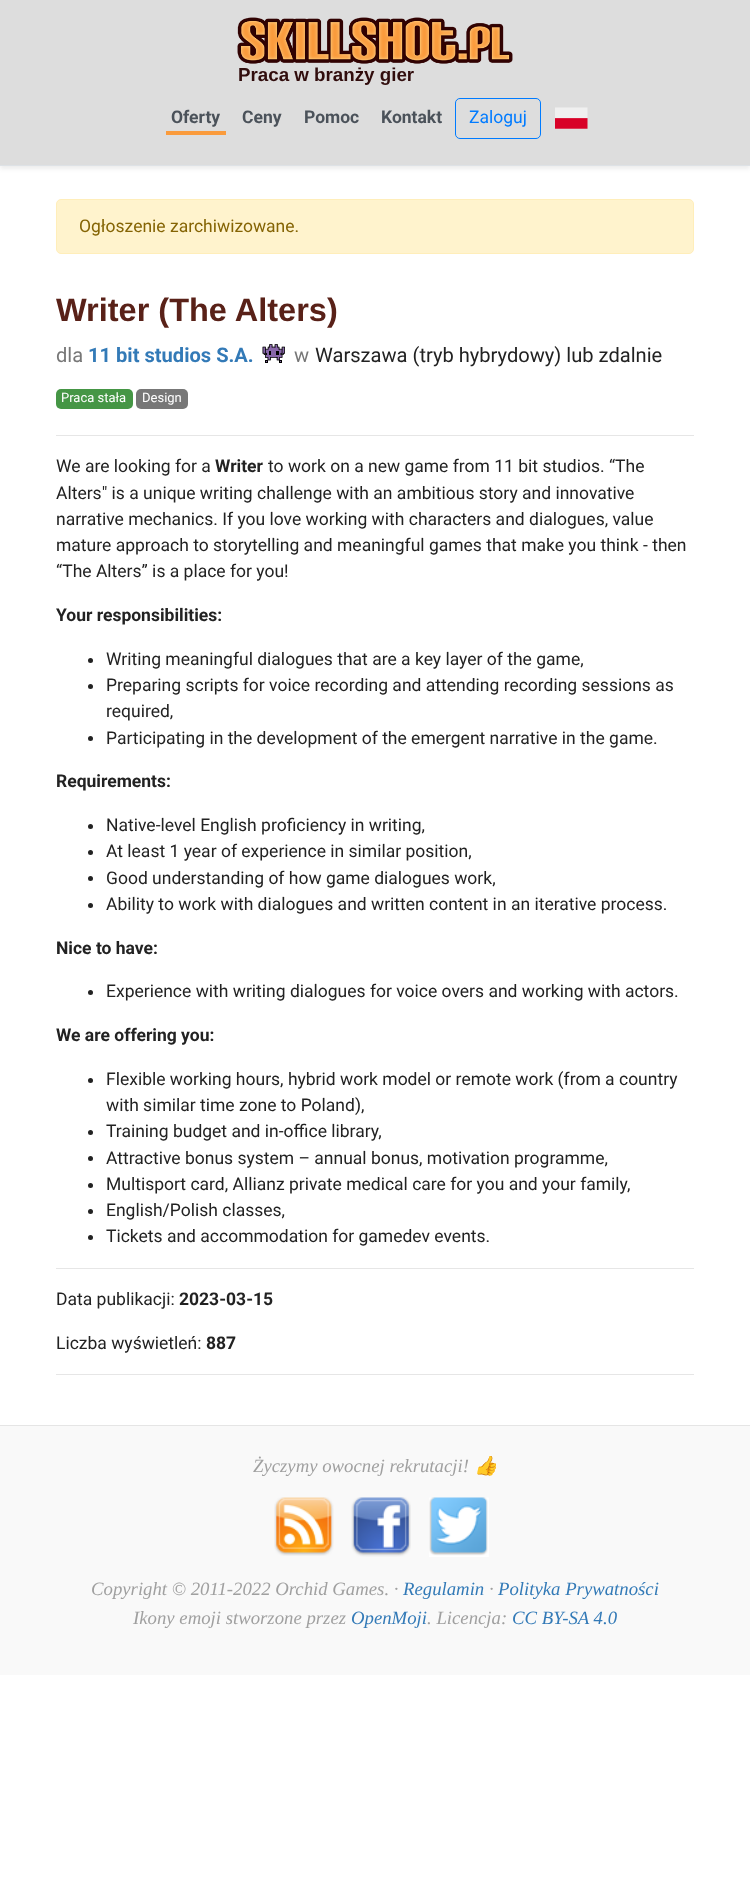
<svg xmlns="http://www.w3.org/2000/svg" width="750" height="1895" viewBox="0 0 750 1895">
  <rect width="100%" height="100%" fill="rgb(255,255,255)"/>
  <rect x="0" y="3" width="750" height="166" fill="rgba(0,0,0,0.07)" filter="blur(2px)"/>
  <rect x="0" y="0" width="750" height="165" fill="rgb(221,221,221)"/>
  <rect x="0" y="165" width="750" height="1" fill="rgb(222,226,230)"/>
  <image x="237" y="17" width="276" height="47" href="pic1.png"/>
  <text x="238" y="81" font-family="Liberation Sans" font-size="18.75" font-weight="bold" fill="rgb(49,13,13)">Praca w branży gier</text>
  <text x="171" y="123" font-family="Roboto" font-size="17.5" font-weight="bold" fill="rgb(75,82,90)">Oferty</text>
  <rect x="166" y="131" width="60" height="4" fill="rgb(250,155,60)"/>
  <g font-family="Roboto" font-size="17.5" font-weight="bold" fill="rgb(75,82,90)">
    <text x="242" y="123">Ceny</text>
    <text x="304" y="123">Pomoc</text>
    <text x="381" y="123">Kontakt</text>
  </g>
  <rect x="455.5" y="98.5" width="85" height="40" rx="4.5" fill="none" stroke="rgb(0,123,255)"/>
  <text x="469" y="123" font-family="Roboto" font-size="17.5" fill="rgb(0,123,255)">Zaloguj</text>
  <image x="555" y="107" width="33" height="22" href="pic2.png"/>
  <rect x="56.5" y="199.5" width="637" height="54" rx="4.5" fill="rgb(255,243,205)" stroke="rgb(255,238,186)"/>
  <text x="79" y="232" font-family="Roboto" font-size="17.5" fill="rgb(133,100,4)">Ogłoszenie zarchiwizowane.</text>
  <text x="56" y="321" font-family="Liberation Sans" font-size="32.5" font-weight="bold" fill="rgb(89,33,24)">Writer (The Alters)</text>
  <text x="56" y="362" font-family="Roboto" font-size="20.1" fill="rgb(119,119,119)">dla</text>
  <text x="88" y="362" font-family="Roboto" font-size="20.1" font-weight="bold" fill="rgb(51,122,183)">11 bit studios S.A.</text>
  <image x="262" y="344" width="23" height="19" href="pic3.png"/>
  <text x="294" y="362" font-family="Roboto" font-size="20.1" fill="rgb(119,119,119)">w</text>
  <text x="315" y="362" font-family="Roboto" font-size="20.1" fill="rgb(34,34,34)">Warszawa (tryb hybrydowy) lub zdalnie</text>
  <rect x="56" y="389" width="77" height="20" rx="5" fill="rgb(69,150,69)"/>
  <text x="61" y="402" font-family="Roboto" font-size="13" fill="rgb(255,255,255)">Praca stała</text>
  <rect x="136" y="389" width="52" height="20" rx="5" fill="rgb(119,119,119)"/>
  <text x="142" y="402" font-family="Roboto" font-size="13" fill="rgb(255,255,255)">Design</text>
  <rect x="56" y="435" width="638" height="1" fill="rgb(230,230,230)"/>
  <text x="56" y="472" font-family="Roboto" font-size="17.5" fill="rgb(34,34,34)">We are looking for a</text>
  <text x="215" y="472" font-family="Roboto" font-size="17.5" font-weight="bold" fill="rgb(34,34,34)">Writer</text>
  <g font-family="Roboto" font-size="17.5" fill="rgb(34,34,34)">
    <text x="268" y="472">to work on a new game from 11 bit studios. “The</text>
    <text>
      <tspan x="56" y="499">Alters" is a unique writing challenge with an ambitious story and innovative</tspan>
      <tspan x="56" y="525">narrative mechanics. If you love working with characters and dialogues, value</tspan>
      <tspan x="56" y="551">mature approach to storytelling and meaningful games that make you think - then</tspan>
      <tspan x="56" y="577">“The Alters” is a place for you!</tspan>
    </text>
  </g>
  <text x="56" y="621" font-family="Roboto" font-size="17.5" font-weight="bold" fill="rgb(34,34,34)">Your responsibilities:</text>
  <circle cx="90.5" cy="660.5" r="2.5" fill="rgb(34,34,34)"/>
  <text x="106" y="665" font-family="Roboto" font-size="17.5" fill="rgb(34,34,34)">Writing meaningful dialogues that are a key layer of the game,</text>
  <circle cx="90.5" cy="686.5" r="2.5" fill="rgb(34,34,34)"/>
  <g font-family="Roboto" font-size="17.5" fill="rgb(34,34,34)">
    <text>
      <tspan x="106" y="691">Preparing scripts for voice recording and attending recording sessions as</tspan>
      <tspan x="106" y="717">required,</tspan>
    </text>
  </g>
  <circle cx="90.5" cy="738.5" r="2.5" fill="rgb(34,34,34)"/>
  <text x="106" y="744" font-family="Roboto" font-size="17.5" fill="rgb(34,34,34)">Participating in the development of the emergent narrative in the game.</text>
  <text x="56" y="787" font-family="Roboto" font-size="17.5" font-weight="bold" fill="rgb(34,34,34)">Requirements:</text>
  <circle cx="90.5" cy="826.5" r="2.5" fill="rgb(34,34,34)"/>
  <text x="106" y="831" font-family="Roboto" font-size="17.5" fill="rgb(34,34,34)">Native-level English proficiency in writing,</text>
  <circle cx="90.5" cy="852.5" r="2.5" fill="rgb(34,34,34)"/>
  <text x="106" y="857" font-family="Roboto" font-size="17.5" fill="rgb(34,34,34)">At least 1 year of experience in similar position,</text>
  <circle cx="90.5" cy="878.5" r="2.5" fill="rgb(34,34,34)"/>
  <text x="106" y="884" font-family="Roboto" font-size="17.5" fill="rgb(34,34,34)">Good understanding of how game dialogues work,</text>
  <circle cx="90.5" cy="905.5" r="2.5" fill="rgb(34,34,34)"/>
  <text x="106" y="910" font-family="Roboto" font-size="17.5" fill="rgb(34,34,34)">Ability to work with dialogues and written content in an iterative process.</text>
  <text x="56" y="954" font-family="Roboto" font-size="17.5" font-weight="bold" fill="rgb(34,34,34)">Nice to have:</text>
  <circle cx="90.5" cy="992.5" r="2.5" fill="rgb(34,34,34)"/>
  <text x="106" y="997" font-family="Roboto" font-size="17.5" fill="rgb(34,34,34)">Experience with writing dialogues for voice overs and working with actors.</text>
  <text x="56" y="1041" font-family="Roboto" font-size="17.5" font-weight="bold" fill="rgb(34,34,34)">We are offering you:</text>
  <circle cx="90.5" cy="1080.5" r="2.5" fill="rgb(34,34,34)"/>
  <g font-family="Roboto" font-size="17.5" fill="rgb(34,34,34)">
    <text>
      <tspan x="106" y="1085">Flexible working hours, hybrid work model or remote work (from a country</tspan>
      <tspan x="106" y="1111">with similar time zone to Poland),</tspan>
    </text>
  </g>
  <circle cx="90.5" cy="1132.5" r="2.5" fill="rgb(34,34,34)"/>
  <text x="106" y="1137" font-family="Roboto" font-size="17.5" fill="rgb(34,34,34)">Training budget and in-office library,</text>
  <circle cx="90.5" cy="1158.5" r="2.5" fill="rgb(34,34,34)"/>
  <text x="106" y="1164" font-family="Roboto" font-size="17.5" fill="rgb(34,34,34)">Attractive bonus system – annual bonus, motivation programme,</text>
  <circle cx="90.5" cy="1185.5" r="2.5" fill="rgb(34,34,34)"/>
  <text x="106" y="1190" font-family="Roboto" font-size="17.5" fill="rgb(34,34,34)">Multisport card, Allianz private medical care for you and your family,</text>
  <circle cx="90.5" cy="1211.5" r="2.5" fill="rgb(34,34,34)"/>
  <text x="106" y="1216" font-family="Roboto" font-size="17.5" fill="rgb(34,34,34)">English/Polish classes,</text>
  <circle cx="90.5" cy="1237.5" r="2.5" fill="rgb(34,34,34)"/>
  <text x="106" y="1242" font-family="Roboto" font-size="17.5" fill="rgb(34,34,34)">Tickets and accommodation for gamedev events.</text>
  <rect x="56" y="1268" width="638" height="1" fill="rgb(230,230,230)"/>
  <text x="56" y="1305" font-family="Roboto" font-size="17.5" fill="rgb(34,34,34)">Data publikacji:</text>
  <text x="179" y="1305" font-family="Roboto" font-size="17.5" font-weight="bold" fill="rgb(34,34,34)">2023-03-15</text>
  <text x="56" y="1349" font-family="Roboto" font-size="17.5" fill="rgb(34,34,34)">Liczba wyświetleń:</text>
  <text x="206" y="1349" font-family="Roboto" font-size="17.5" font-weight="bold" fill="rgb(34,34,34)">887</text>
  <rect x="56" y="1374" width="638" height="1" fill="rgb(230,230,230)"/>
  <rect x="0" y="1426" width="750" height="249" fill="rgb(249,249,249)"/>
  <rect x="0" y="1425" width="750" height="1" fill="rgb(229,229,229)"/>
  <text x="253" y="1472" font-family="Liberation Serif" font-size="18.75" font-style="italic" fill="rgb(160,160,160)">Życzymy owocnej rekrutacji!</text>
  <text x="474" y="1472" font-family="Noto Color Emoji" font-size="18.75" font-style="italic" fill="rgb(160,160,160)">👍</text>
  <image x="274" y="1497" width="60" height="59" href="pic4.png"/>
  <image x="351" y="1497" width="60" height="60" href="pic5.png"/>
  <image x="429" y="1497" width="60" height="60" href="pic6.png"/>
  <text x="91" y="1595" font-family="Liberation Serif" font-size="18.75" font-style="italic" fill="rgb(160,160,160)">Copyright © 2011-2022 Orchid Games. ·</text>
  <text x="403" y="1595" font-family="Liberation Serif" font-size="18.75" font-style="italic" fill="rgb(51,122,183)">Regulamin</text>
  <text x="489" y="1595" font-family="Liberation Serif" font-size="18.75" font-style="italic" fill="rgb(160,160,160)">·</text>
  <text x="498" y="1595" font-family="Liberation Serif" font-size="18.75" font-style="italic" fill="rgb(51,122,183)">Polityka Prywatności</text>
  <text x="133" y="1624" font-family="Liberation Serif" font-size="18.75" font-style="italic" fill="rgb(160,160,160)">Ikony emoji stworzone przez</text>
  <text x="351" y="1624" font-family="Liberation Serif" font-size="18.75" font-style="italic" fill="rgb(51,122,183)">OpenMoji</text>
  <text x="427" y="1624" font-family="Liberation Serif" font-size="18.75" font-style="italic" fill="rgb(160,160,160)">. Licencja:</text>
  <text x="512" y="1624" font-family="Liberation Serif" font-size="18.75" font-style="italic" fill="rgb(51,122,183)">CC BY-SA 4.0</text>
</svg>
